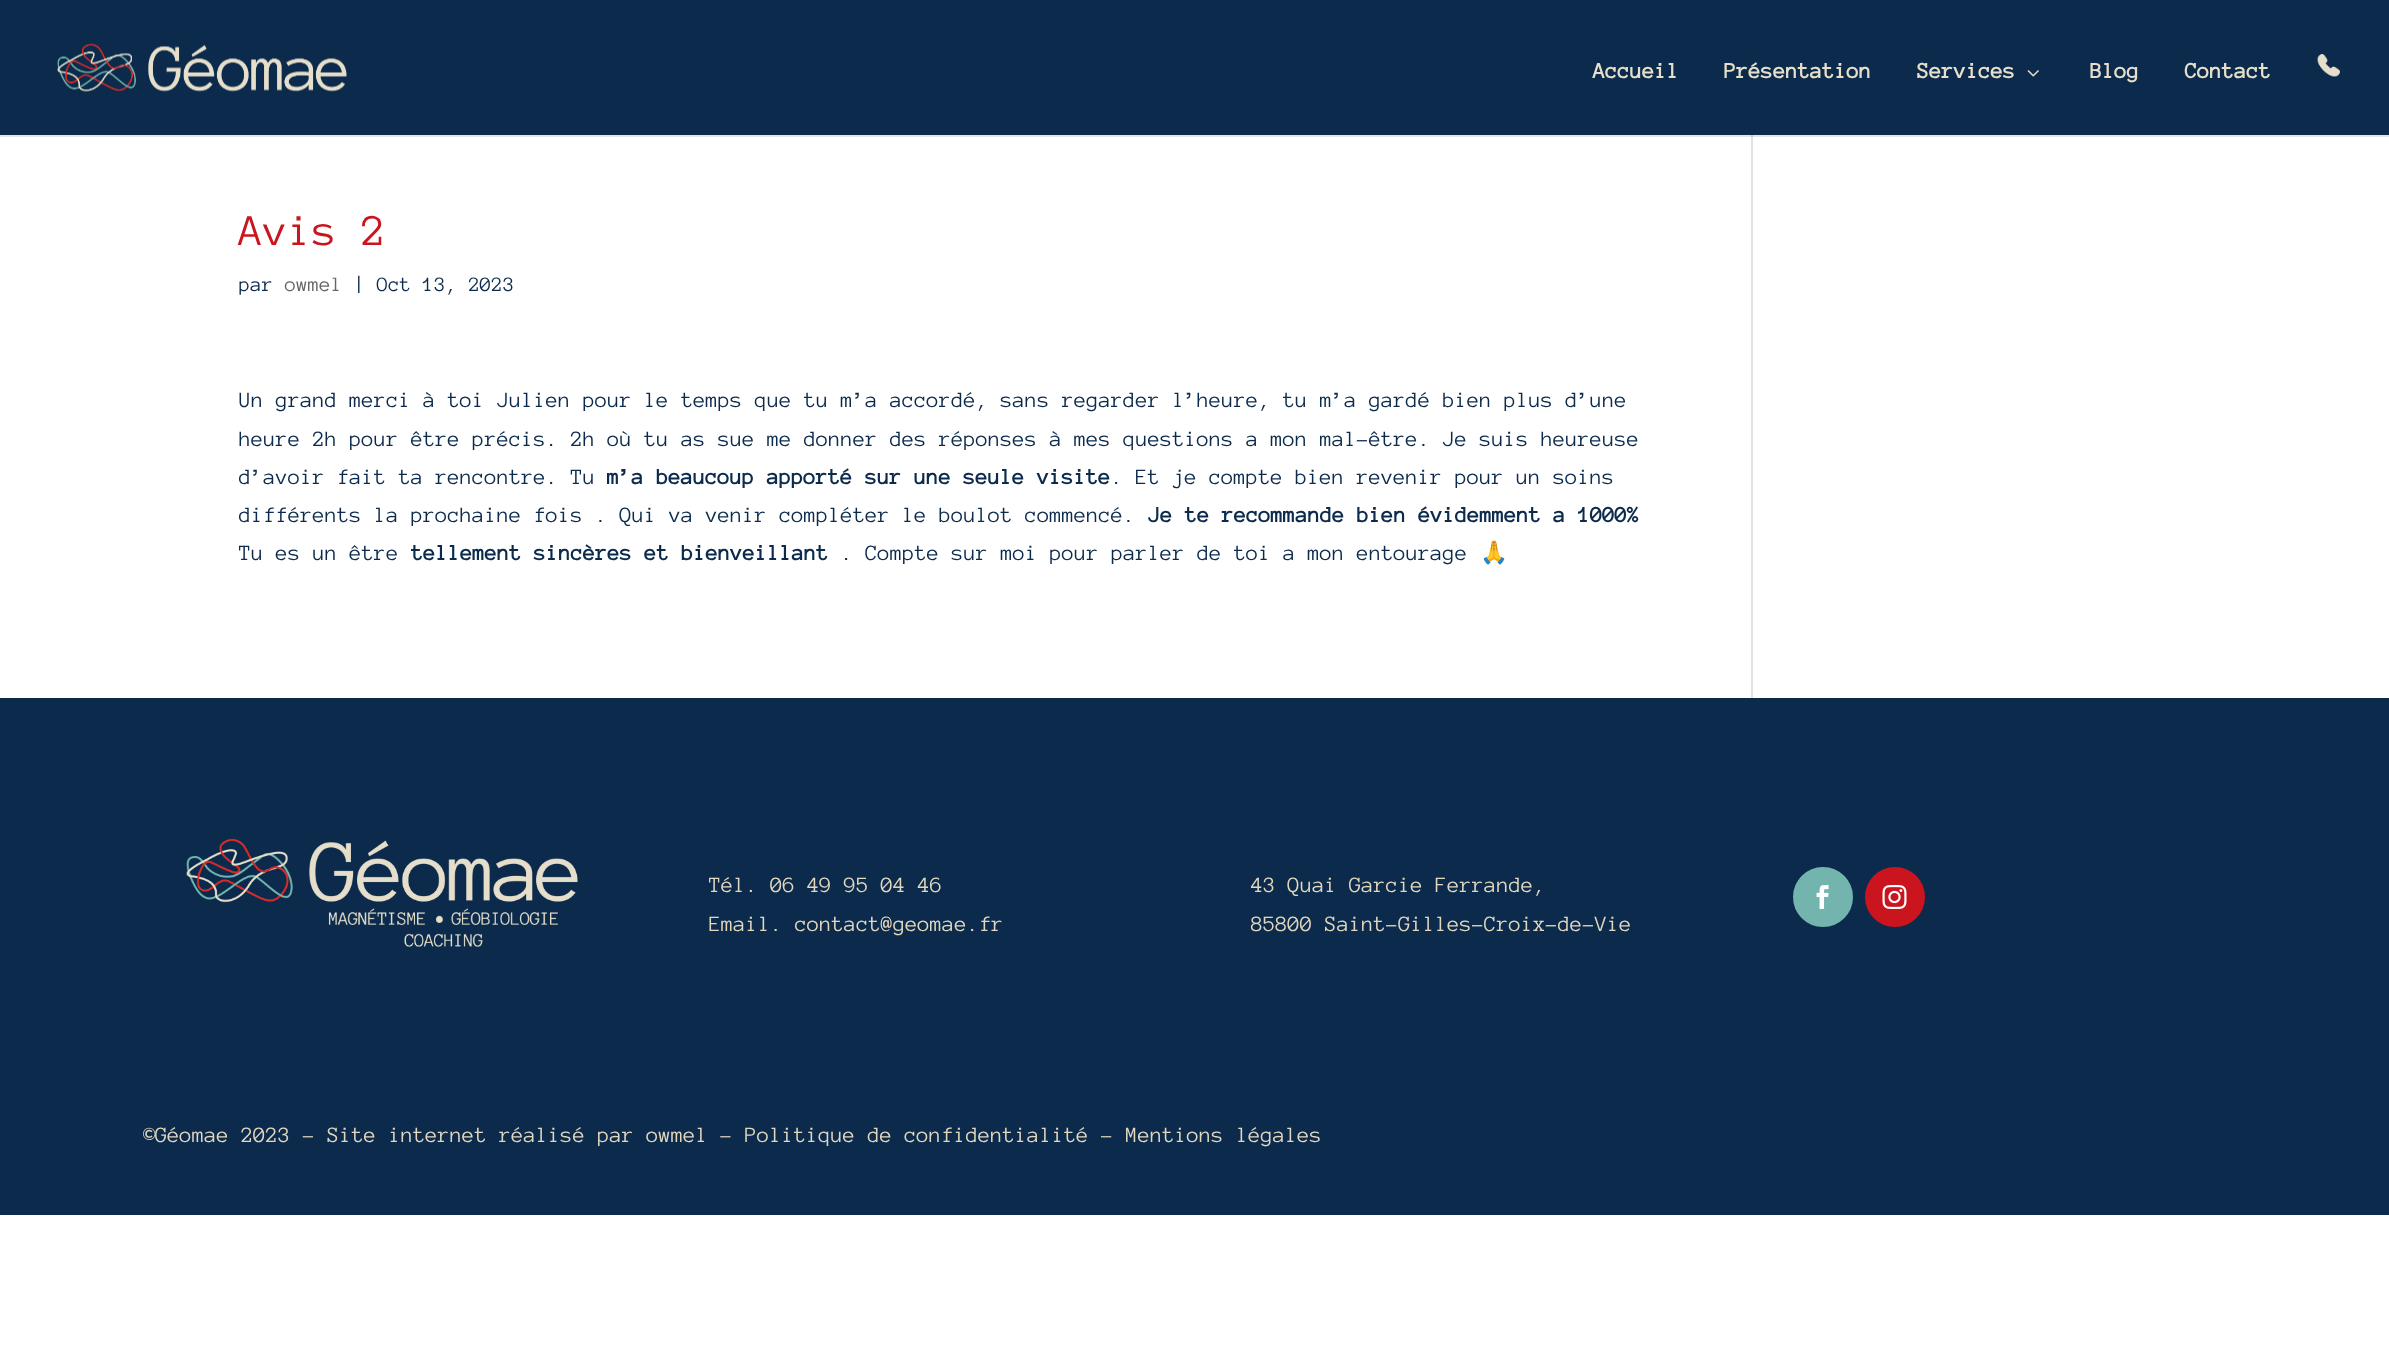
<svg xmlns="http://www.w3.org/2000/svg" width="2389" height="1371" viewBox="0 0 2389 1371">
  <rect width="100%" height="100%" fill="rgb(255,255,255)"/>
  <rect x="1751" y="135" width="2" height="563" fill="rgb(226,226,226)"/>
  <path d="M0 135V137H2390V2V135Z" fill="rgba(0,0,0,0.1)"/>
  <rect x="0" y="0" width="2389" height="135" fill="rgb(11,42,76)"/>
  <image x="57" y="43" width="290" height="49" href="pic1.png"/>
  <g font-family="Anonymous Pro" font-size="22.5" font-weight="bold" fill="rgb(230,223,203)">
    <text x="1593" y="78">Accueil</text>
    <text x="1724" y="78">Présentation</text>
    <text x="1917" y="78">Services</text>
  </g>
  <image x="2027" y="70" width="12" height="7" href="pic2.png"/>
  <g font-family="Anonymous Pro" font-size="22.5" font-weight="bold" fill="rgb(230,223,203)">
    <text x="2090" y="78">Blog</text>
    <text x="2185" y="78">Contact</text>
  </g>
  <image x="2317" y="54" width="23" height="23" href="pic3.png"/>
  <text x="239" y="245" font-family="Anonymous Pro" font-size="45" fill="rgb(202,21,30)">Avis 2</text>
  <text x="239" y="291" font-family="Anonymous Pro" font-size="21" fill="rgb(11,42,76)">par</text>
  <text x="285" y="291" font-family="Anonymous Pro" font-size="21" fill="rgb(102,102,102)">owmel</text>
  <text x="354" y="291" font-family="Anonymous Pro" font-size="21" fill="rgb(11,42,76)">| Oct 13, 2023</text>
  <g font-family="Anonymous Pro" font-size="22.5" fill="rgb(11,42,76)">
    <text>
      <tspan x="239" y="407">Un grand merci à toi Julien pour le temps que tu m’a accordé, sans regarder l’heure, tu m’a gardé bien plus d’une</tspan>
      <tspan x="239" y="446">heure 2h pour être précis. 2h où tu as sue me donner des réponses à mes questions a mon mal-être. Je suis heureuse</tspan>
      <tspan x="239" y="484">d’avoir fait ta rencontre. Tu</tspan>
    </text>
  </g>
  <text x="607" y="484" font-family="Anonymous Pro" font-size="22.5" font-weight="bold" fill="rgb(11,42,76)">m’a beaucoup apporté sur une seule visite</text>
  <g font-family="Anonymous Pro" font-size="22.5" fill="rgb(11,42,76)">
    <text x="1111" y="484">. Et je compte bien revenir pour un soins</text>
    <text x="239" y="522">différents la prochaine fois . Qui va venir compléter le boulot commencé.</text>
  </g>
  <text x="1148" y="522" font-family="Anonymous Pro" font-size="22.5" font-weight="bold" fill="rgb(11,42,76)">Je te recommande bien évidemment a 1000%</text>
  <text x="239" y="560" font-family="Anonymous Pro" font-size="22.5" fill="rgb(11,42,76)">Tu es un être</text>
  <text x="411" y="560" font-family="Anonymous Pro" font-size="22.5" font-weight="bold" fill="rgb(11,42,76)">tellement sincères et bienveillant</text>
  <text x="841" y="560" font-family="Anonymous Pro" font-size="22.5" fill="rgb(11,42,76)">. Compte sur moi pour parler de toi a mon entourage</text>
  <text x="1480" y="560" font-family="Noto Color Emoji" font-size="22.5" fill="rgb(11,42,76)">🙏</text>
  <rect x="0" y="698" width="2389" height="517" fill="rgb(11,42,76)"/>
  <image x="186" y="838" width="392" height="109" href="pic4.png"/>
  <g font-family="Anonymous Pro" font-size="22.5" fill="rgb(226,215,191)">
    <text>
      <tspan x="709" y="892">Tél. 06 49 95 04 46</tspan>
      <tspan x="709" y="931">Email. contact@geomae.fr</tspan>
    </text>
    <text>
      <tspan x="1251" y="892">43 Quai Garcie Ferrande,</tspan>
      <tspan x="1251" y="931">85800 Saint-Gilles-Croix-de-Vie</tspan>
    </text>
  </g>
  <circle cx="1823" cy="897" r="27" fill="rgb(115,180,174)" stroke="rgb(115,180,174)" stroke-width="6"/>
  <image x="1816" y="885" width="13" height="24" href="pic5.png"/>
  <circle cx="1895" cy="897" r="27" fill="rgb(202,21,30)" stroke="rgb(202,21,30)" stroke-width="6"/>
  <image x="1882" y="885" width="25" height="24" href="pic6.png"/>
  <text x="143" y="1142" font-family="Anonymous Pro" font-size="22.5" fill="rgb(226,215,191)">©Géomae 2023 – Site internet réalisé par owmel – Politique de confidentialité – Mentions légales</text>
</svg>
